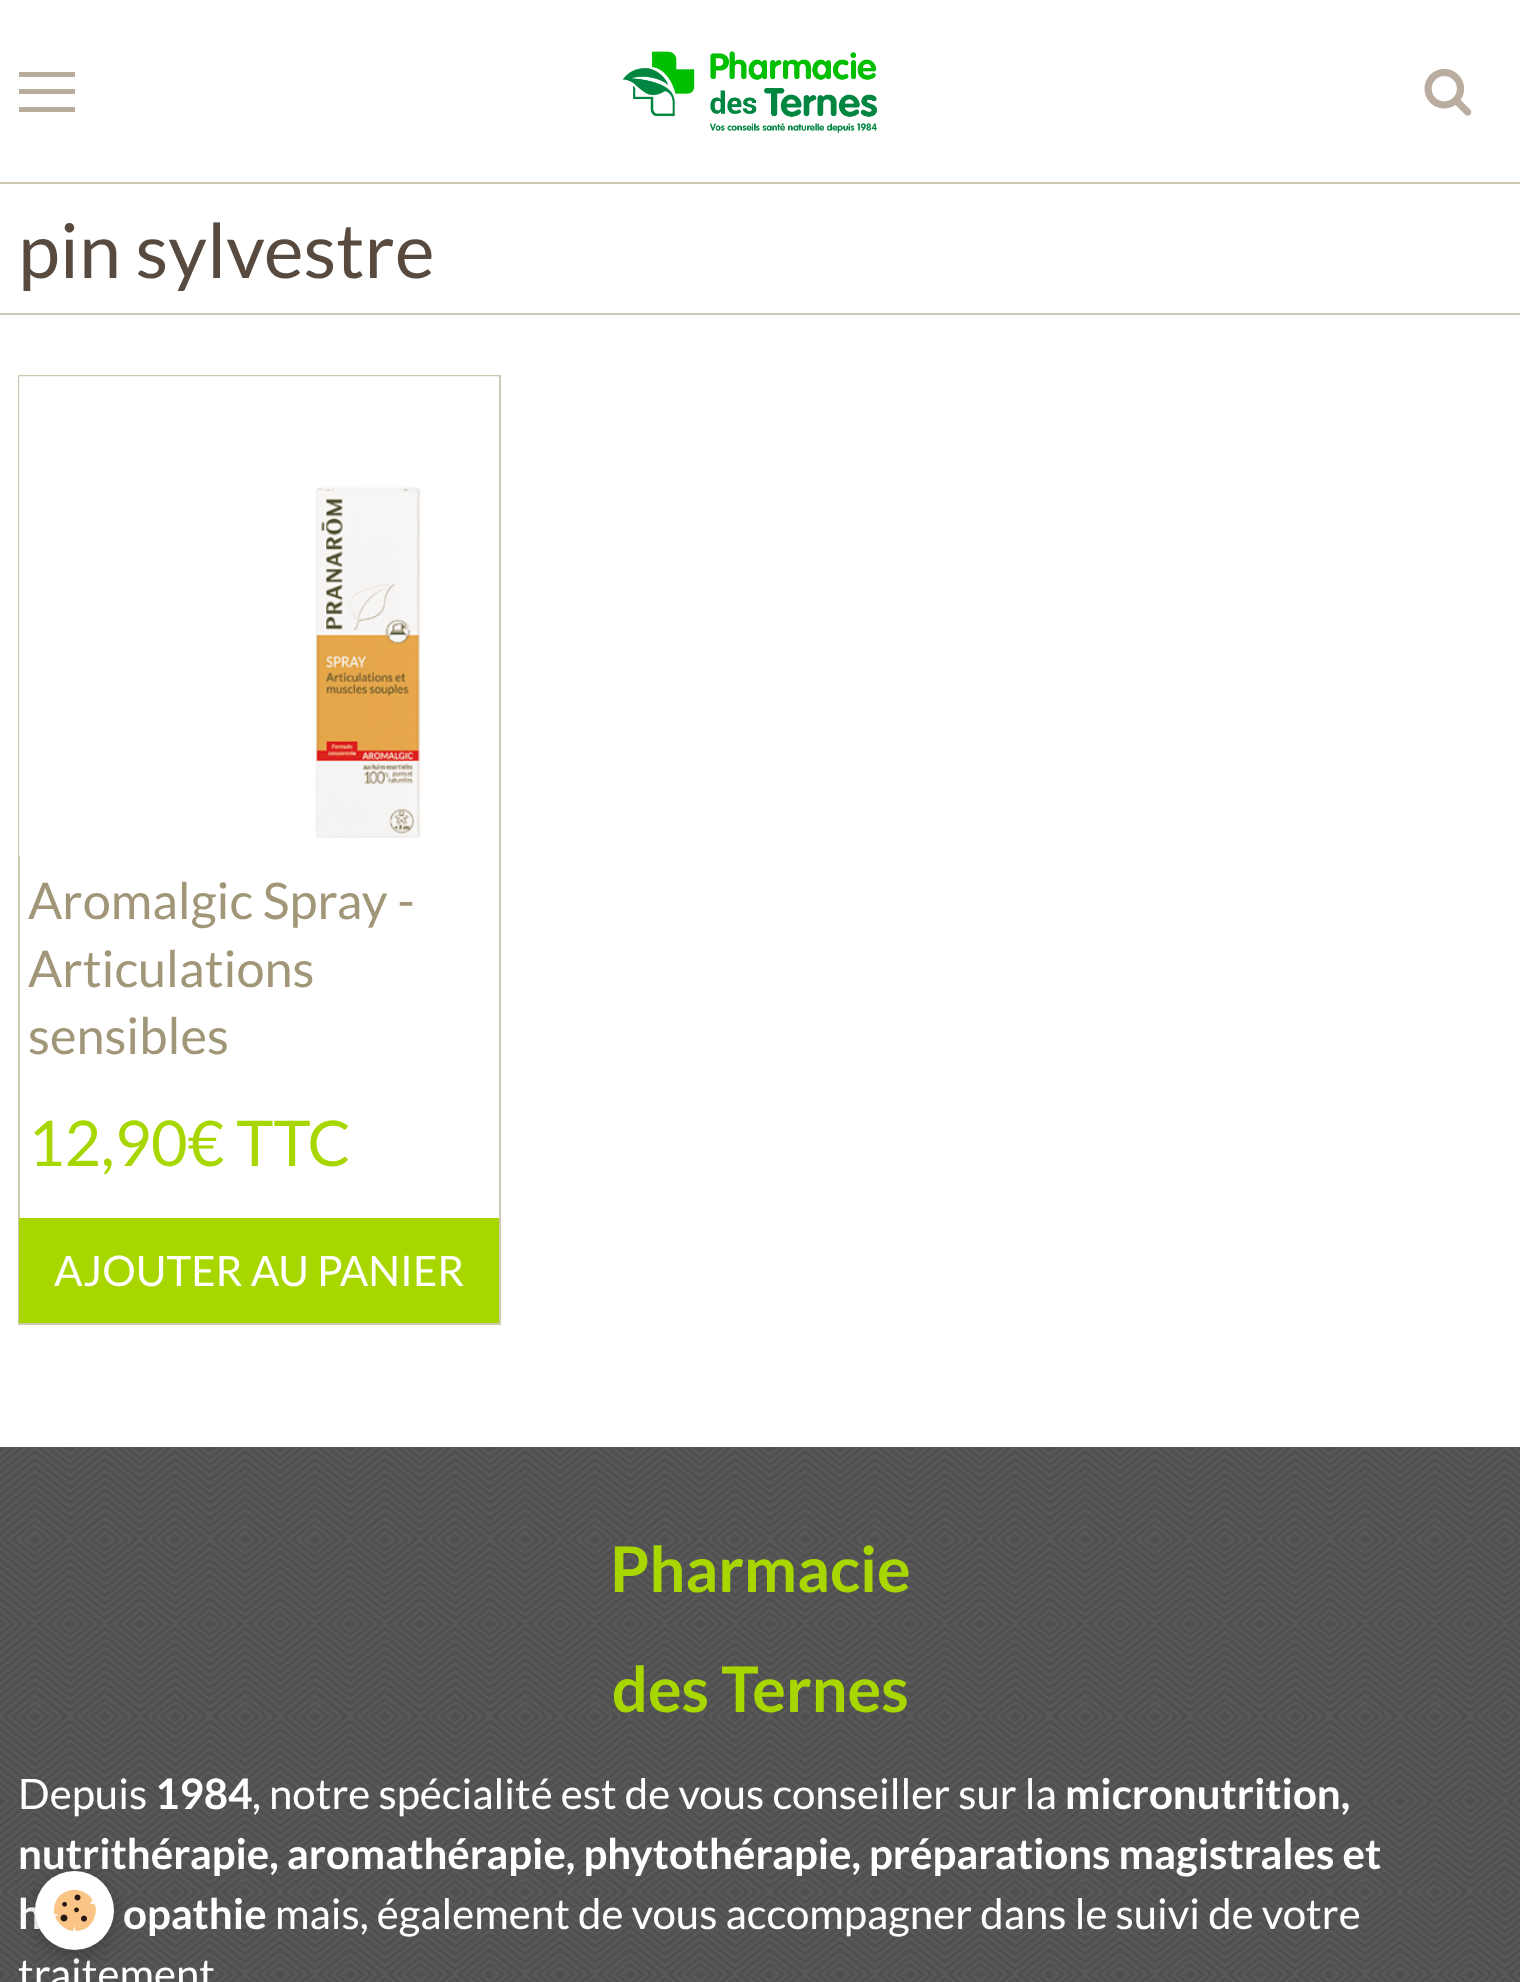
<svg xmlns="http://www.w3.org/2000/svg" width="1520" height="1982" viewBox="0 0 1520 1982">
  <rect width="100%" height="100%" fill="rgb(255,255,255)"/>
  <rect x="0" y="182" width="1520" height="2" fill="rgb(205,200,177)"/>
  <rect x="19" y="89" width="56" height="5" fill="rgb(186,173,160)"/>
  <rect x="19" y="72" width="56" height="5" fill="rgb(186,173,160)"/>
  <rect x="19" y="107" width="56" height="5" fill="rgb(186,173,160)"/>
  <image x="623" y="51" width="254" height="82" href="pic1.png"/>
  <image x="1424" y="68" width="48" height="48" href="pic2.png"/>
  <rect x="0" y="313" width="1520" height="2" fill="rgb(205,200,177)"/>
  <text x="18" y="278" font-family="Lato" font-size="75.5" fill="rgb(88,74,62)">pin sylvestre</text>
  <rect x="19" y="376" width="481" height="948" fill="none" stroke="rgb(205,200,177)" stroke-width="2"/>
  <image x="19" y="376" width="480" height="480" href="pic3.png"/>
  <g font-family="Lato" font-size="50.5" fill="rgb(161,150,119)">
    <text>
      <tspan x="28" y="919">Aromalgic Spray -</tspan>
      <tspan x="28" y="987">Articulations</tspan>
      <tspan x="28" y="1054">sensibles</tspan>
    </text>
  </g>
  <text x="28" y="1166" font-family="Lato" font-size="63" fill="rgb(168,215,0)">12,90€ TTC</text>
  <rect x="19" y="1218" width="480" height="105" fill="rgb(168,215,0)"/>
  <text x="54" y="1286" font-family="Lato" font-size="42" fill="rgb(255,255,255)">AJOUTER AU PANIER</text>
  <rect x="0" y="1447" width="1520" height="535" fill="rgb(91,91,91)"/>
  <image x="0" y="1447" width="1520" height="535" href="pic4.png"/>
  <g font-family="Lato" font-size="63" font-weight="bold" fill="rgb(168,215,0)">
    <text x="610" y="1592">Pharmacie</text>
    <text x="612" y="1712">des Ternes</text>
  </g>
  <text x="18" y="1809" font-family="Lato" font-size="42" fill="rgb(255,255,255)">Depuis</text>
  <text x="155" y="1809" font-family="Lato" font-size="42" font-weight="bold" fill="rgb(255,255,255)">1984</text>
  <text x="252" y="1809" font-family="Lato" font-size="42" fill="rgb(255,255,255)">, notre spécialité est de vous conseiller sur la</text>
  <g font-family="Lato" font-size="42" font-weight="bold" fill="rgb(255,255,255)">
    <text x="1065" y="1809">micronutrition,</text>
    <text>
      <tspan x="18" y="1869">nutrithérapie, aromathérapie, phytothérapie, préparations magistrales et</tspan>
      <tspan x="18" y="1929">h</tspan>
    </text>
    <text x="123" y="1929">opathie</text>
  </g>
  <g font-family="Lato" font-size="42" fill="rgb(255,255,255)">
    <text x="275" y="1929">mais, également de vous accompagner dans le suivi de votre</text>
    <text x="18" y="1989">traitement</text>
  </g>
  <rect x="35" y="1876" width="79" height="79" rx="39.5" fill="rgba(0,0,0,0.24)" filter="blur(9px)"/>
  <circle cx="74.5" cy="1910.5" r="39.5" fill="rgb(255,255,255)"/>
  <image x="53" y="1889" width="43" height="42" href="pic5.png"/>
</svg>
